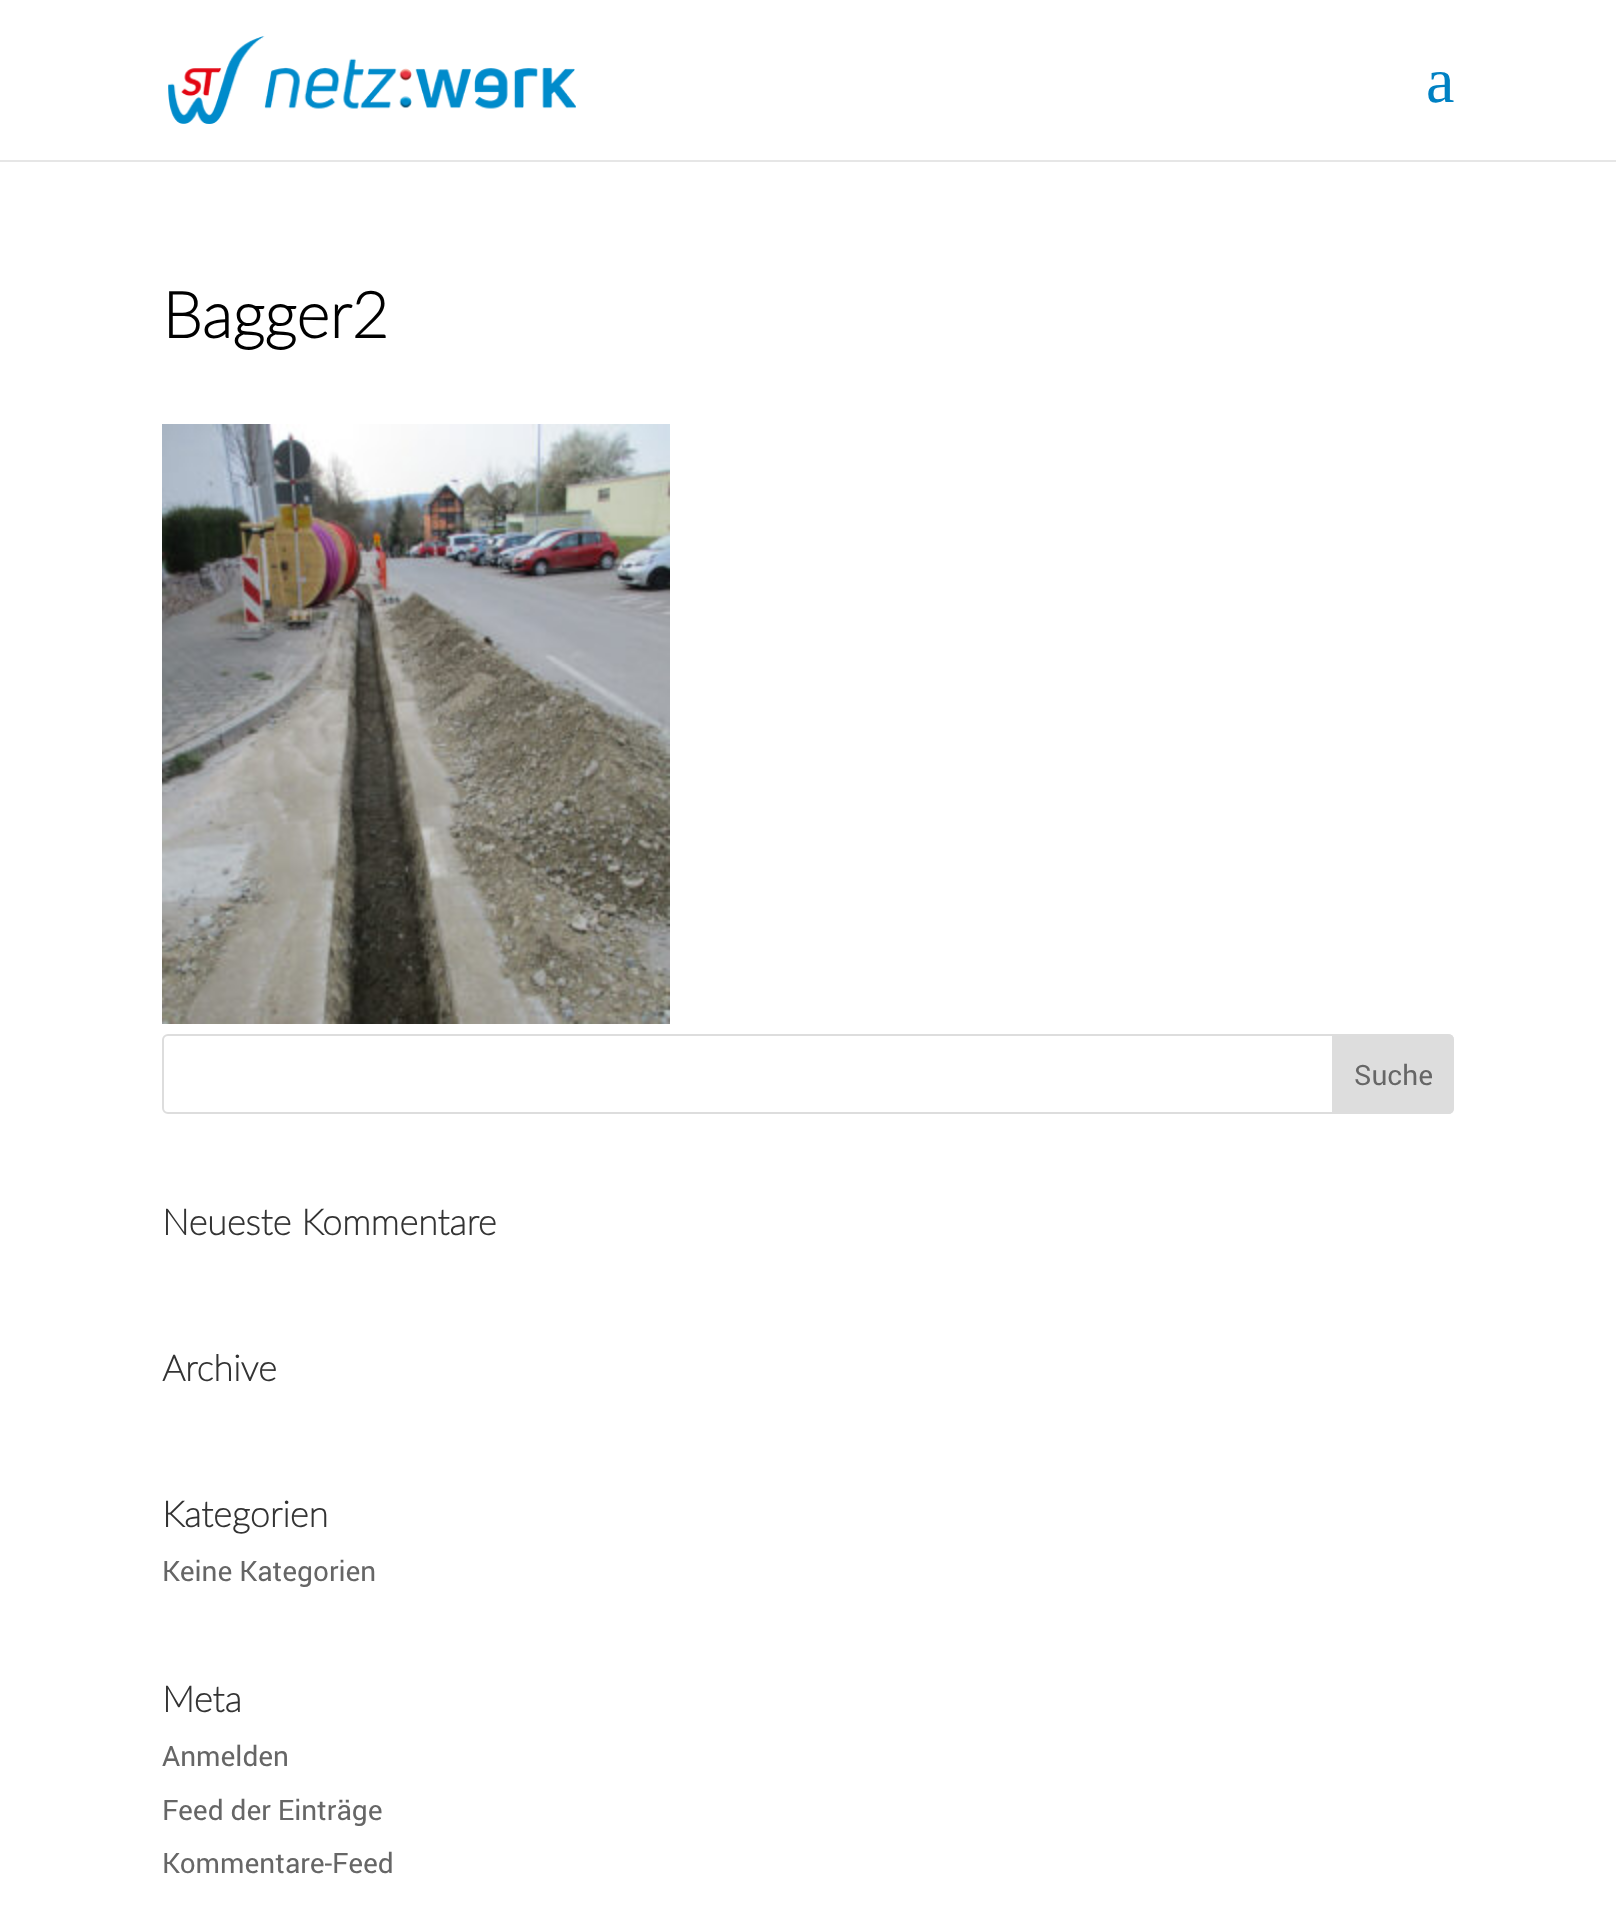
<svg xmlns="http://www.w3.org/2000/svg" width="1616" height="1918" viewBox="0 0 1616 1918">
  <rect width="100%" height="100%" fill="rgb(255,255,255)"/>
  <rect x="0" y="160" width="1616" height="2" fill="rgb(230,230,230)"/>
  <image x="168" y="36" width="408" height="88" href="pic1.png"/>
  <text x="1426" y="102" font-family="Liberation Serif" font-size="64" fill="rgb(0,129,195)">a</text>
  <text x="162" y="338" font-family="Lato" font-size="64" font-weight="bold" fill="rgb(0,0,0)">Bagger2</text>
  <image x="162" y="424" width="508" height="600" href="pic2.png"/>
  <rect x="163" y="1035" width="1290" height="78" rx="5" fill="none" stroke="rgb(221,221,221)" stroke-width="2"/>
  <path d="M1333 1035H1448C1451 1035 1453 1037 1453 1040V1108C1453 1111 1451 1113 1448 1113H1333Z" fill="rgb(221,221,221)" stroke="rgb(221,221,221)" stroke-width="2"/>
  <text x="1354" y="1085" font-family="Roboto" font-size="28" fill="rgb(102,102,102)">Suche</text>
  <g font-family="Lato" font-size="36" font-weight="bold" fill="rgb(51,51,51)">
    <text x="162" y="1235">Neueste Kommentare</text>
    <text x="162" y="1381">Archive</text>
    <text x="162" y="1527">Kategorien</text>
  </g>
  <text x="162" y="1581" font-family="Roboto" font-size="28" fill="rgb(102,102,102)">Keine Kategorien</text>
  <text x="162" y="1712" font-family="Lato" font-size="36" font-weight="bold" fill="rgb(51,51,51)">Meta</text>
  <g font-family="Roboto" font-size="28" fill="rgb(102,102,102)">
    <text>
      <tspan x="162" y="1766">Anmelden</tspan>
      <tspan x="162" y="1820">Feed der Einträge</tspan>
      <tspan x="162" y="1873">Kommentare-Feed</tspan>
    </text>
  </g>
</svg>
